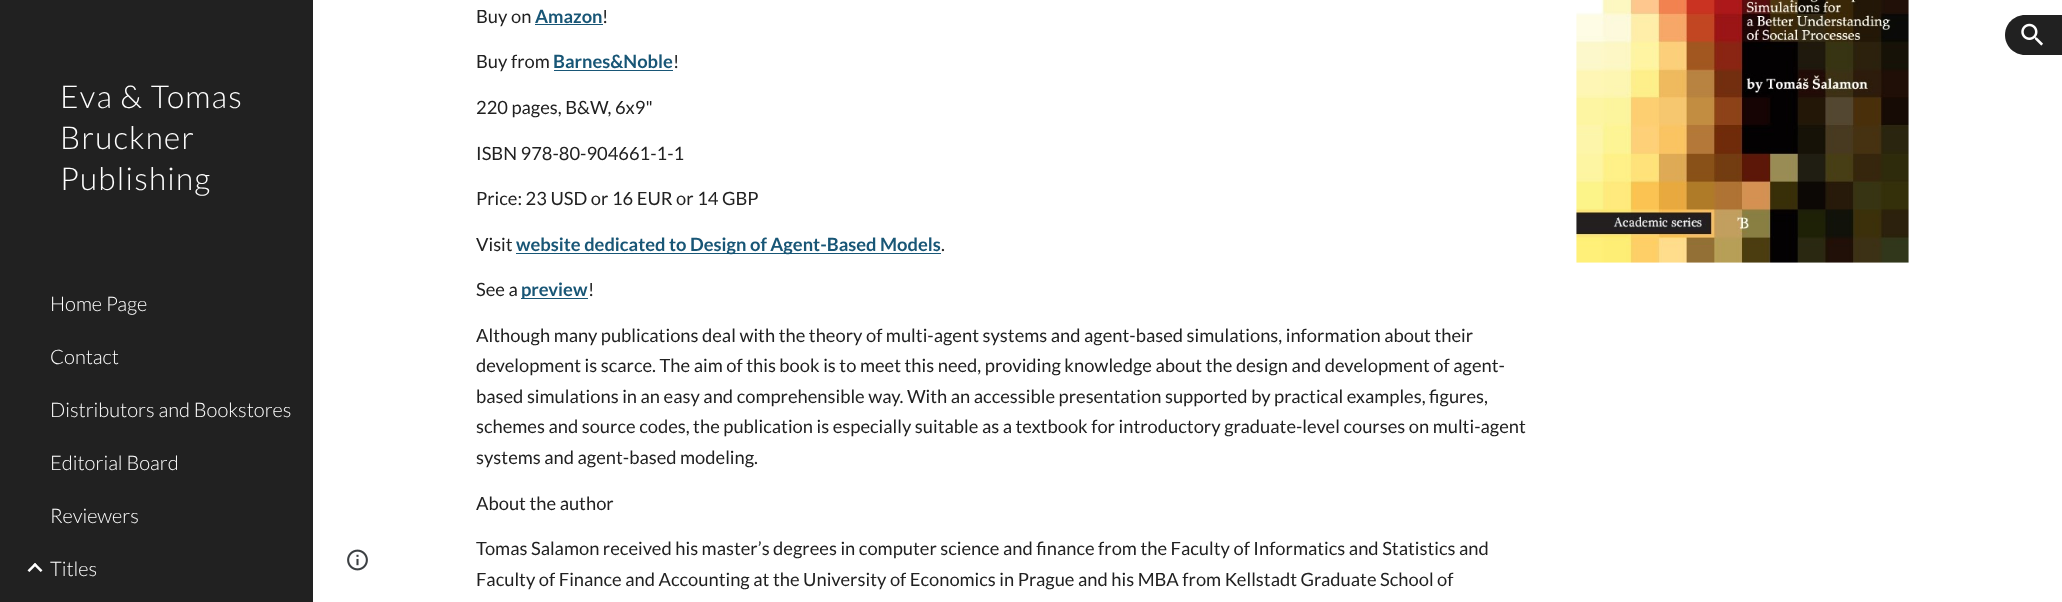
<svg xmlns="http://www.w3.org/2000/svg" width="2062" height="602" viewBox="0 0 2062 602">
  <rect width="100%" height="100%" fill="rgb(255,255,255)"/>
  <path d="M2025 15H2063V55H2025C2014 55 2005 46 2005 35C2005 24 2014 15 2025 15Z" fill="rgb(33,33,33)"/>
  <image x="2021" y="23" width="22" height="23" href="pic1.png"/>
  <rect x="0" y="0" width="313" height="602" fill="rgb(33,33,33)"/>
  <g font-family="Lato" font-size="31.5" font-weight="300" letter-spacing="1.25" fill="rgb(255,255,255)">
    <text>
      <tspan x="60" y="108">Eva &amp; Tomas</tspan>
      <tspan x="60" y="149">Bruckner</tspan>
      <tspan x="60" y="190">Publishing</tspan>
    </text>
  </g>
  <g font-family="Lato" font-size="20" font-weight="300" fill="rgb(255,255,255)">
    <text x="50" y="311">Home Page</text>
    <text x="50" y="364">Contact</text>
    <text x="50" y="417">Distributors and Bookstores</text>
    <text x="50" y="470">Editorial Board</text>
    <text x="50" y="523">Reviewers</text>
  </g>
  <image x="27" y="563" width="16" height="9" href="pic2.png"/>
  <text x="50" y="576" font-family="Lato" font-size="20" font-weight="300" fill="rgb(255,255,255)">Titles</text>
  <image x="347" y="549" width="21" height="22" href="pic3.png"/>
  <text x="476" y="23" font-family="Lato" font-size="18.33" fill="rgb(33,33,33)">Buy on</text>
  <text x="535" y="23" font-family="Lato" font-size="18.33" font-weight="bold" fill="rgb(24,86,118)">Amazon</text>
  <rect x="535" y="24" width="68" height="1" fill="rgb(24,86,118)"/>
  <g font-family="Lato" font-size="18.33" fill="rgb(33,33,33)">
    <text x="602" y="23">!</text>
    <text x="476" y="68">Buy from</text>
  </g>
  <text x="553" y="68" font-family="Lato" font-size="18.33" font-weight="bold" fill="rgb(24,86,118)">Barnes&amp;Noble</text>
  <rect x="554" y="70" width="119" height="1" fill="rgb(24,86,118)"/>
  <g font-family="Lato" font-size="18.33" fill="rgb(33,33,33)">
    <text x="673" y="68">!</text>
    <text x="476" y="114">220 pages, B&amp;W, 6x9"</text>
    <text x="476" y="160">ISBN 978-80-904661-1-1</text>
    <text x="476" y="205">Price: 23 USD or 16 EUR or 14 GBP</text>
    <text x="476" y="251">Visit</text>
  </g>
  <rect x="516" y="253" width="425" height="1" fill="rgb(24,86,118)"/>
  <text x="516" y="251" font-family="Lato" font-size="18.33" font-weight="bold" fill="rgb(24,86,118)">website dedicated to Design of Agent-Based Models</text>
  <g font-family="Lato" font-size="18.33" fill="rgb(33,33,33)">
    <text x="941" y="251">.</text>
    <text x="476" y="296">See a</text>
  </g>
  <rect x="521" y="298" width="67" height="1" fill="rgb(24,86,118)"/>
  <text x="521" y="296" font-family="Lato" font-size="18.33" font-weight="bold" fill="rgb(24,86,118)">preview</text>
  <g font-family="Lato" font-size="18.33" fill="rgb(33,33,33)">
    <text x="588" y="296">!</text>
    <text>
      <tspan x="476" y="342">Although many publications deal with the theory of multi-agent systems and agent-based simulations, information about their</tspan>
      <tspan x="476" y="372">development is scarce. The aim of this book is to meet this need, providing knowledge about the design and development of agent-</tspan>
      <tspan x="476" y="403">based simulations in an easy and comprehensible way. With an accessible presentation supported by practical examples, figures,</tspan>
      <tspan x="476" y="433">schemes and source codes, the publication is especially suitable as a textbook for introductory graduate-level courses on multi-agent</tspan>
      <tspan x="476" y="464">systems and agent-based modeling.</tspan>
    </text>
    <text x="476" y="510">About the author</text>
    <text>
      <tspan x="476" y="555">Tomas Salamon received his master’s degrees in computer science and finance from the Faculty of Informatics and Statistics and</tspan>
      <tspan x="476" y="586">Faculty of Finance and Accounting at the University of Economics in Prague and his MBA from Kellstadt Graduate School of</tspan>
    </text>
  </g>
  <image x="1576" y="0" width="333" height="263" href="pic4.png"/>
</svg>
